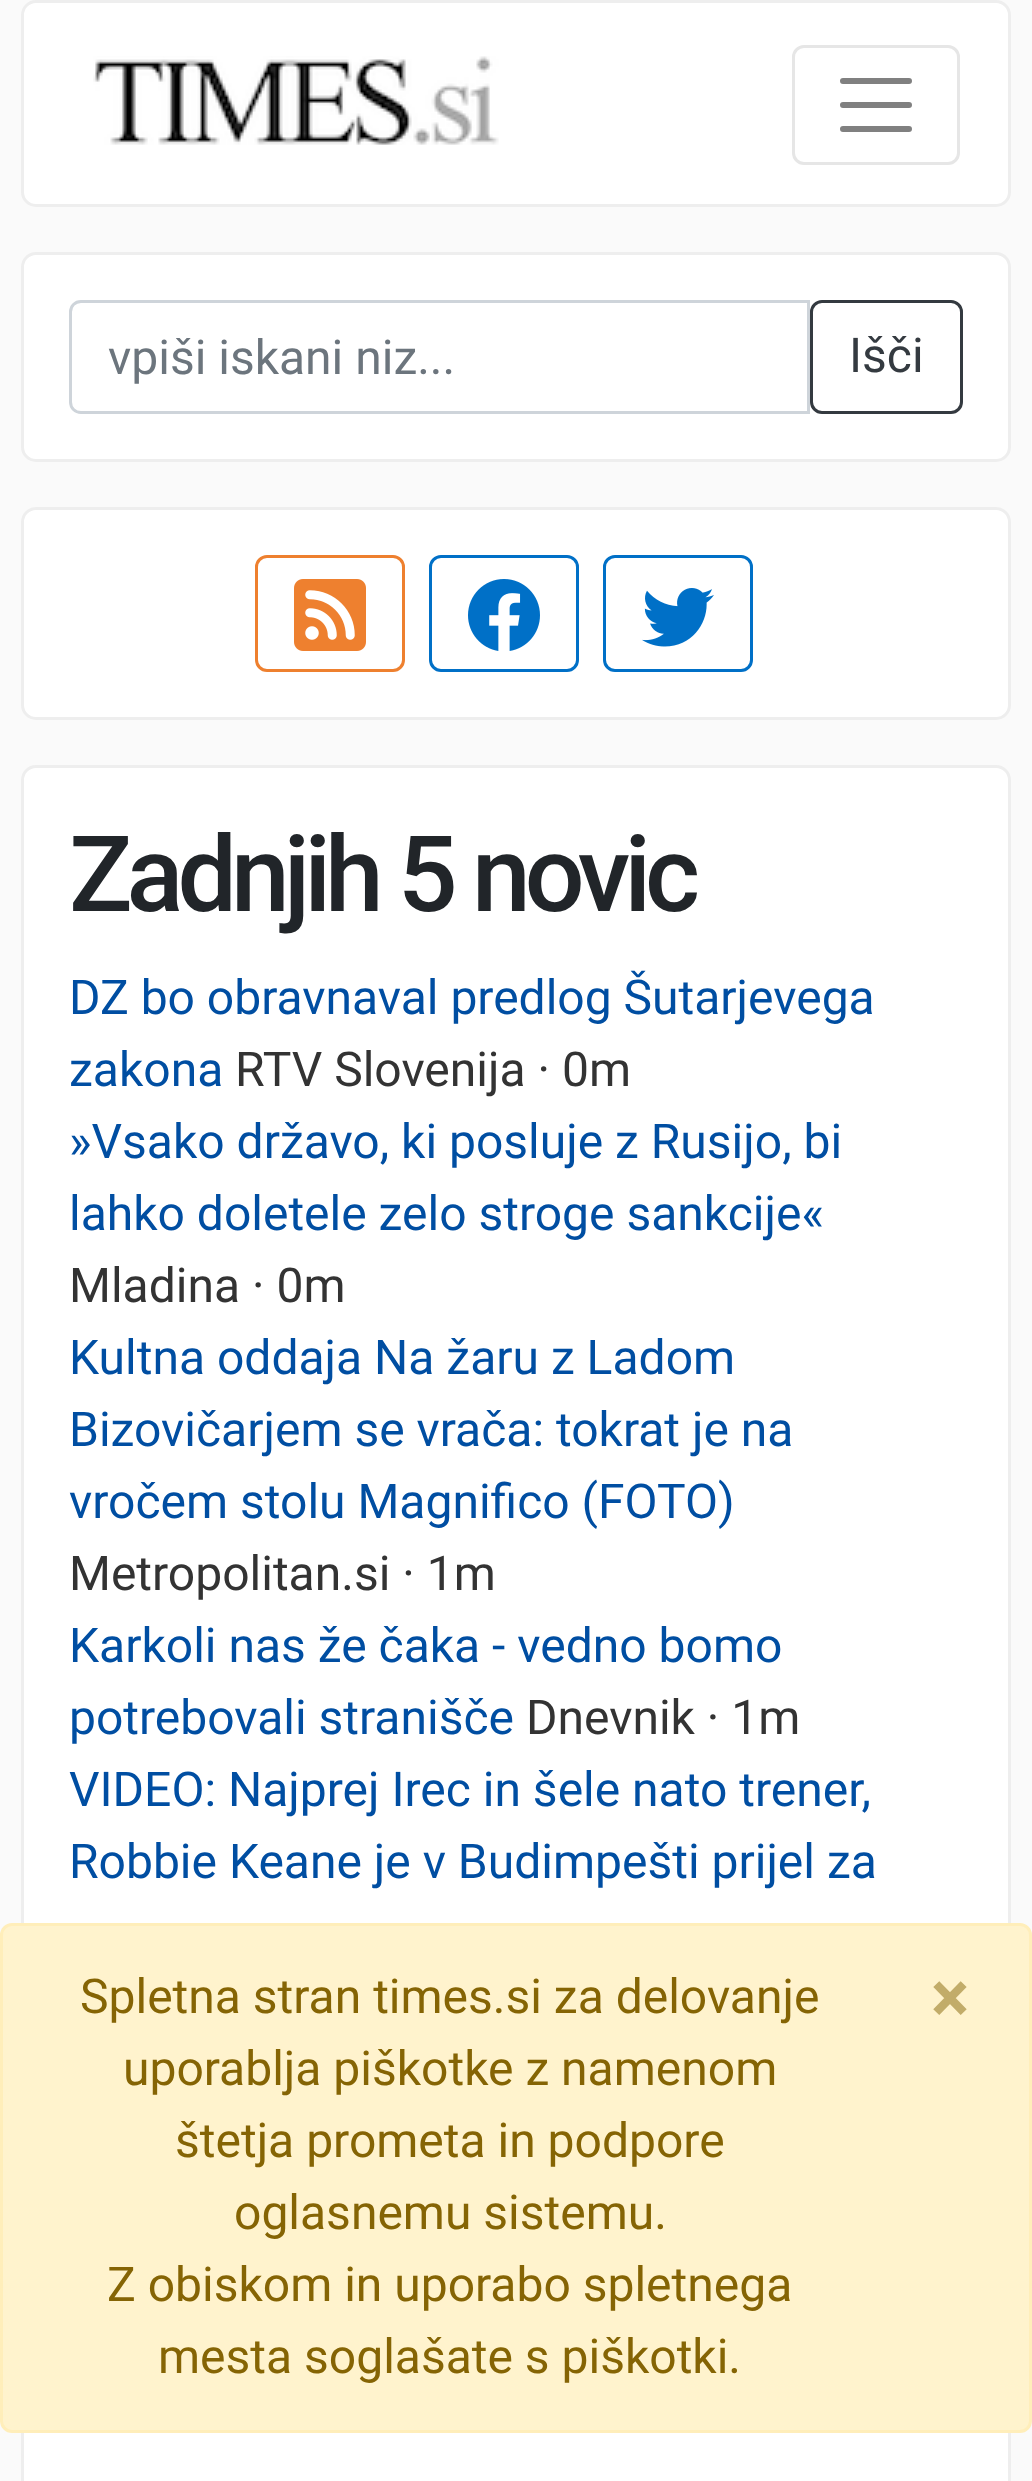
<svg xmlns="http://www.w3.org/2000/svg" width="1032" height="2481" viewBox="0 0 1032 2481">
  <rect width="100%" height="100%" fill="rgb(250,250,250)"/>
  <rect x="22.5" y="1.5" width="987" height="204" rx="13.5" fill="rgb(255,255,255)" stroke="rgb(238,238,238)" stroke-width="3"/>
  <image x="93" y="56" width="406" height="89" href="pic1.png"/>
  <rect x="793.5" y="46.5" width="165" height="117" rx="10.5" fill="none" stroke="rgb(230,230,230)" stroke-width="3"/>
  <path d="M843 81H909M843 105H909M843 129H909" fill="none" stroke="rgb(128,128,128)" stroke-width="6" stroke-linecap="round"/>
  <rect x="22.5" y="253.5" width="987" height="207" rx="13.5" fill="rgb(255,255,255)" stroke="rgb(238,238,238)" stroke-width="3"/>
  <path d="M81 301.5H808.5V412.5H81C75 412.5 70.5 408 70.5 402V312C70.5 306 75 301.5 81 301.5Z" fill="none" stroke="rgb(206,212,218)" stroke-width="3"/>
  <text x="108" y="374" font-family="Roboto" font-size="48" fill="rgb(108,117,125)">vpiši iskani niz...</text>
  <rect x="811.5" y="301.5" width="150" height="111" rx="10.5" fill="none" stroke="rgb(52,58,64)" stroke-width="3"/>
  <text x="849" y="372" font-family="Roboto" font-size="48" fill="rgb(52,58,64)">Išči</text>
  <rect x="22.5" y="508.5" width="987" height="210" rx="13.5" fill="rgb(255,255,255)" stroke="rgb(238,238,238)" stroke-width="3"/>
  <rect x="256.5" y="556.5" width="147" height="114" rx="10.5" fill="none" stroke="rgb(238,128,47)" stroke-width="3"/>
  <image x="294" y="579" width="72" height="72" href="pic2.png"/>
  <rect x="430.5" y="556.5" width="147" height="114" rx="10.5" fill="none" stroke="rgb(0,112,199)" stroke-width="3"/>
  <image x="468" y="579" width="72" height="72" href="pic3.png"/>
  <rect x="604.5" y="556.5" width="147" height="114" rx="10.5" fill="none" stroke="rgb(0,112,199)" stroke-width="3"/>
  <image x="642" y="588" width="72" height="59" href="pic4.png"/>
  <rect x="22.5" y="766.5" width="987" height="1371" rx="13.5" fill="rgb(255,255,255)" stroke="rgb(238,238,238)" stroke-width="3"/>
  <text x="69" y="911" font-family="Roboto" font-size="105.5" font-weight="500" letter-spacing="-6" fill="rgb(33,37,41)">Zadnjih 5 novic</text>
  <g font-family="Roboto" font-size="48" fill="rgb(0,78,162)">
    <text>
      <tspan x="69" y="1014">DZ bo obravnaval predlog Šutarjevega</tspan>
      <tspan x="69" y="1086">zakona</tspan>
    </text>
  </g>
  <text x="235" y="1086" font-family="Roboto" font-size="48" fill="rgb(51,51,51)">RTV Slovenija · 0m</text>
  <g font-family="Roboto" font-size="48" fill="rgb(0,78,162)">
    <text>
      <tspan x="69" y="1158">»Vsako državo, ki posluje z Rusijo, bi</tspan>
      <tspan x="69" y="1230">lahko doletele zelo stroge sankcije«</tspan>
    </text>
  </g>
  <text x="69" y="1302" font-family="Roboto" font-size="48" fill="rgb(51,51,51)">Mladina · 0m</text>
  <g font-family="Roboto" font-size="48" fill="rgb(0,78,162)">
    <text>
      <tspan x="69" y="1374">Kultna oddaja Na žaru z Ladom</tspan>
      <tspan x="69" y="1446">Bizovičarjem se vrača: tokrat je na</tspan>
      <tspan x="69" y="1518">vročem stolu Magnifico (FOTO)</tspan>
    </text>
  </g>
  <text x="69" y="1590" font-family="Roboto" font-size="48" fill="rgb(51,51,51)">Metropolitan.si · 1m</text>
  <g font-family="Roboto" font-size="48" fill="rgb(0,78,162)">
    <text>
      <tspan x="69" y="1662">Karkoli nas že čaka - vedno bomo</tspan>
      <tspan x="69" y="1734">potrebovali stranišče</tspan>
    </text>
  </g>
  <text x="526" y="1734" font-family="Roboto" font-size="48" fill="rgb(51,51,51)">Dnevnik · 1m</text>
  <g font-family="Roboto" font-size="48" fill="rgb(0,78,162)">
    <text>
      <tspan x="69" y="1806">VIDEO: Najprej Irec in šele nato trener,</tspan>
      <tspan x="69" y="1878">Robbie Keane je v Budimpešti prijel za</tspan>
    </text>
  </g>
  <rect x="24" y="2433" width="984" height="48" fill="rgb(255,255,255)"/>
  <rect x="22.5" y="2185.5" width="987" height="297" fill="none" stroke="rgb(238,238,238)" stroke-width="3"/>
  <rect x="1.5" y="1924.5" width="1029" height="507" rx="10.5" fill="rgb(255,243,205)" stroke="rgb(255,238,186)" stroke-width="3"/>
  <g font-family="Roboto" font-size="48" fill="rgb(133,100,4)">
    <text x="80" y="2013">Spletna stran times.si za delovanje</text>
    <text x="123" y="2085">uporablja piškotke z namenom</text>
    <text x="175" y="2157">štetja prometa in podpore</text>
    <text x="234" y="2229">oglasnemu sistemu.</text>
    <text x="107" y="2301">Z obiskom in uporabo spletnega</text>
    <text x="158" y="2373">mesta soglašate s piškotki.</text>
  </g>
  <text x="931" y="2022" font-family="Roboto" font-size="72" font-weight="bold" fill="rgb(194,172,105)">×</text>
</svg>
